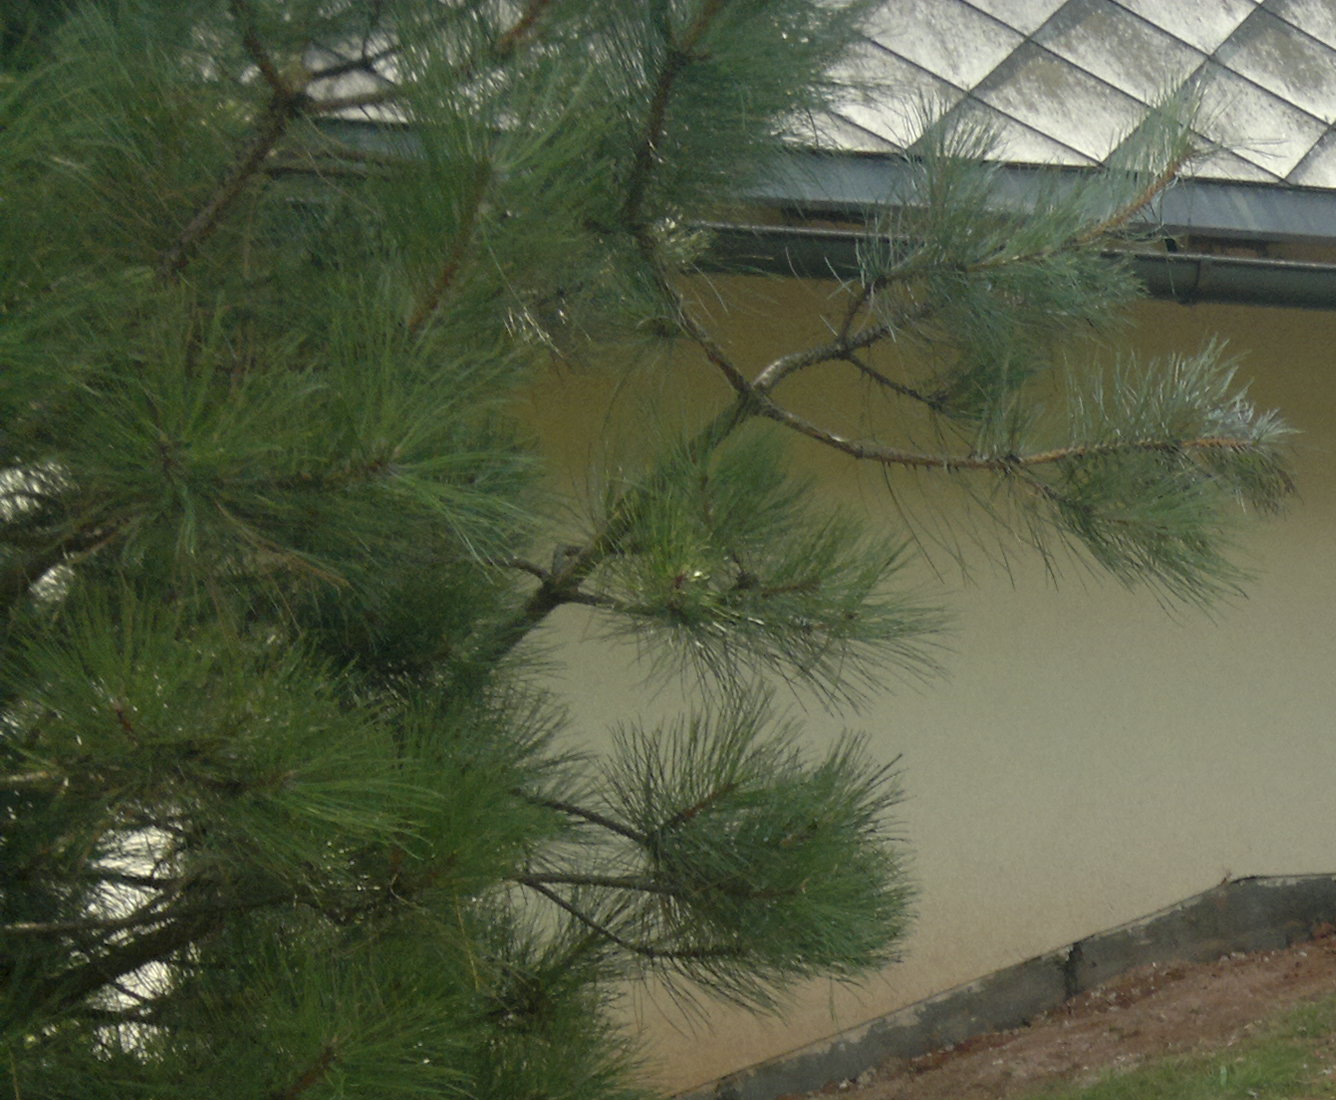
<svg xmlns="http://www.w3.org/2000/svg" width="1336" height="1100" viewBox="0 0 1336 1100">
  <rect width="100%" height="100%" fill="rgb(255,255,255)"/>
  <image x="0" y="0" width="1336" height="1100" href="pic1.png"/>
</svg>
